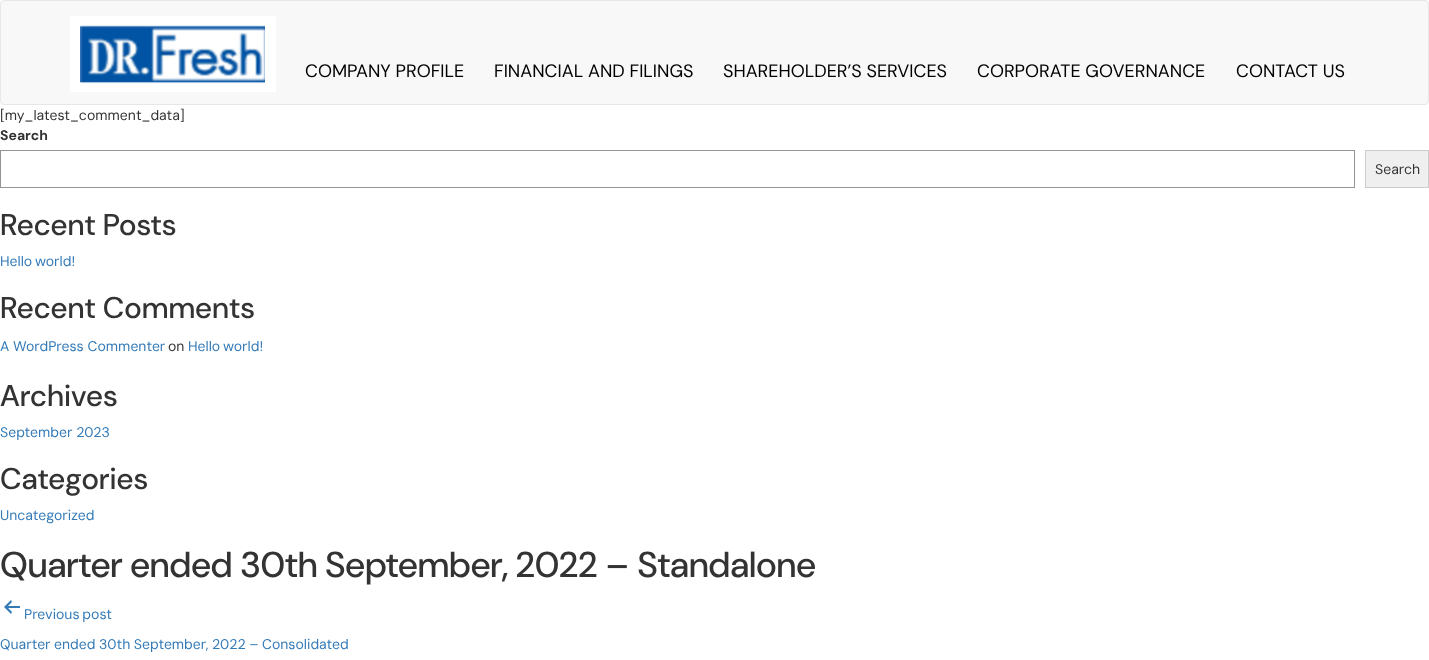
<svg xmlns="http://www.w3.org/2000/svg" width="1429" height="660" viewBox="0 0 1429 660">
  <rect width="100%" height="100%" fill="rgb(255,255,255)"/>
  <rect x="0.5" y="0.5" width="1428" height="104" rx="3.5" fill="rgb(248,248,248)" stroke="rgb(231,231,231)"/>
  <image x="70" y="16" width="206" height="76" href="pic1.png"/>
  <g font-family="'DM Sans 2'" font-size="18" fill="rgb(0,0,0)">
    <text x="305" y="77">COMPANY PROFILE</text>
    <text x="494" y="77">FINANCIAL AND FILINGS</text>
    <text x="723" y="77">SHAREHOLDER’S SERVICES</text>
    <text x="977" y="77">CORPORATE GOVERNANCE</text>
    <text x="1236" y="77">CONTACT US</text>
  </g>
  <text x="0" y="120" font-family="DM Sans" font-size="14" fill="rgb(51,51,51)">[my_latest_comment_data]</text>
  <text x="0" y="140" font-family="DM Sans" font-size="14" font-weight="bold" fill="rgb(51,51,51)">Search</text>
  <rect x="0.5" y="150.5" width="1354" height="37" fill="none" stroke="rgb(148,148,148)"/>
  <rect x="1365.5" y="150.5" width="63" height="37" fill="rgb(239,239,239)" stroke="rgb(204,204,204)"/>
  <text x="1375" y="174" font-family="DM Sans" font-size="14" fill="rgb(51,51,51)">Search</text>
  <text x="0" y="235" font-family="DM Sans" font-size="30" font-weight="500" fill="rgb(51,51,51)">Recent Posts</text>
  <text x="0" y="266" word-spacing="-1" font-family="DM Sans" font-size="14" fill="rgb(51,122,183)">Hello world!</text>
  <text x="0" y="318" font-family="DM Sans" font-size="30" font-weight="500" fill="rgb(51,51,51)">Recent Comments</text>
  <text x="0" y="351" font-family="DM Sans" font-size="14" fill="rgb(51,122,183)">A WordPress Commenter</text>
  <text x="168" y="351" font-family="DM Sans" font-size="14" fill="rgb(51,51,51)">on</text>
  <text x="188" y="351" word-spacing="-1" font-family="DM Sans" font-size="14" fill="rgb(51,122,183)">Hello world!</text>
  <text x="0" y="406" font-family="DM Sans" font-size="30" font-weight="500" fill="rgb(51,51,51)">Archives</text>
  <text x="0" y="437" font-family="DM Sans" font-size="14" fill="rgb(51,122,183)">September 2023</text>
  <text x="0" y="489" font-family="DM Sans" font-size="30" font-weight="500" fill="rgb(51,51,51)">Categories</text>
  <text x="0" y="520" font-family="DM Sans" font-size="14" fill="rgb(51,122,183)">Uncategorized</text>
  <text x="0" y="577" font-family="'DM Sans 2'" font-size="36" font-weight="500" fill="rgb(51,51,51)">Quarter ended 30th September, 2022 – Standalone</text>
  <image x="4" y="600" width="16" height="14" href="pic2.png"/>
  <g font-family="DM Sans" font-size="14" fill="rgb(51,122,183)">
    <text x="24" y="619" word-spacing="-1">Previous post</text>
    <text x="0" y="649" word-spacing="-0.25">Quarter ended 30th September, 2022 – Consolidated</text>
  </g>
</svg>
